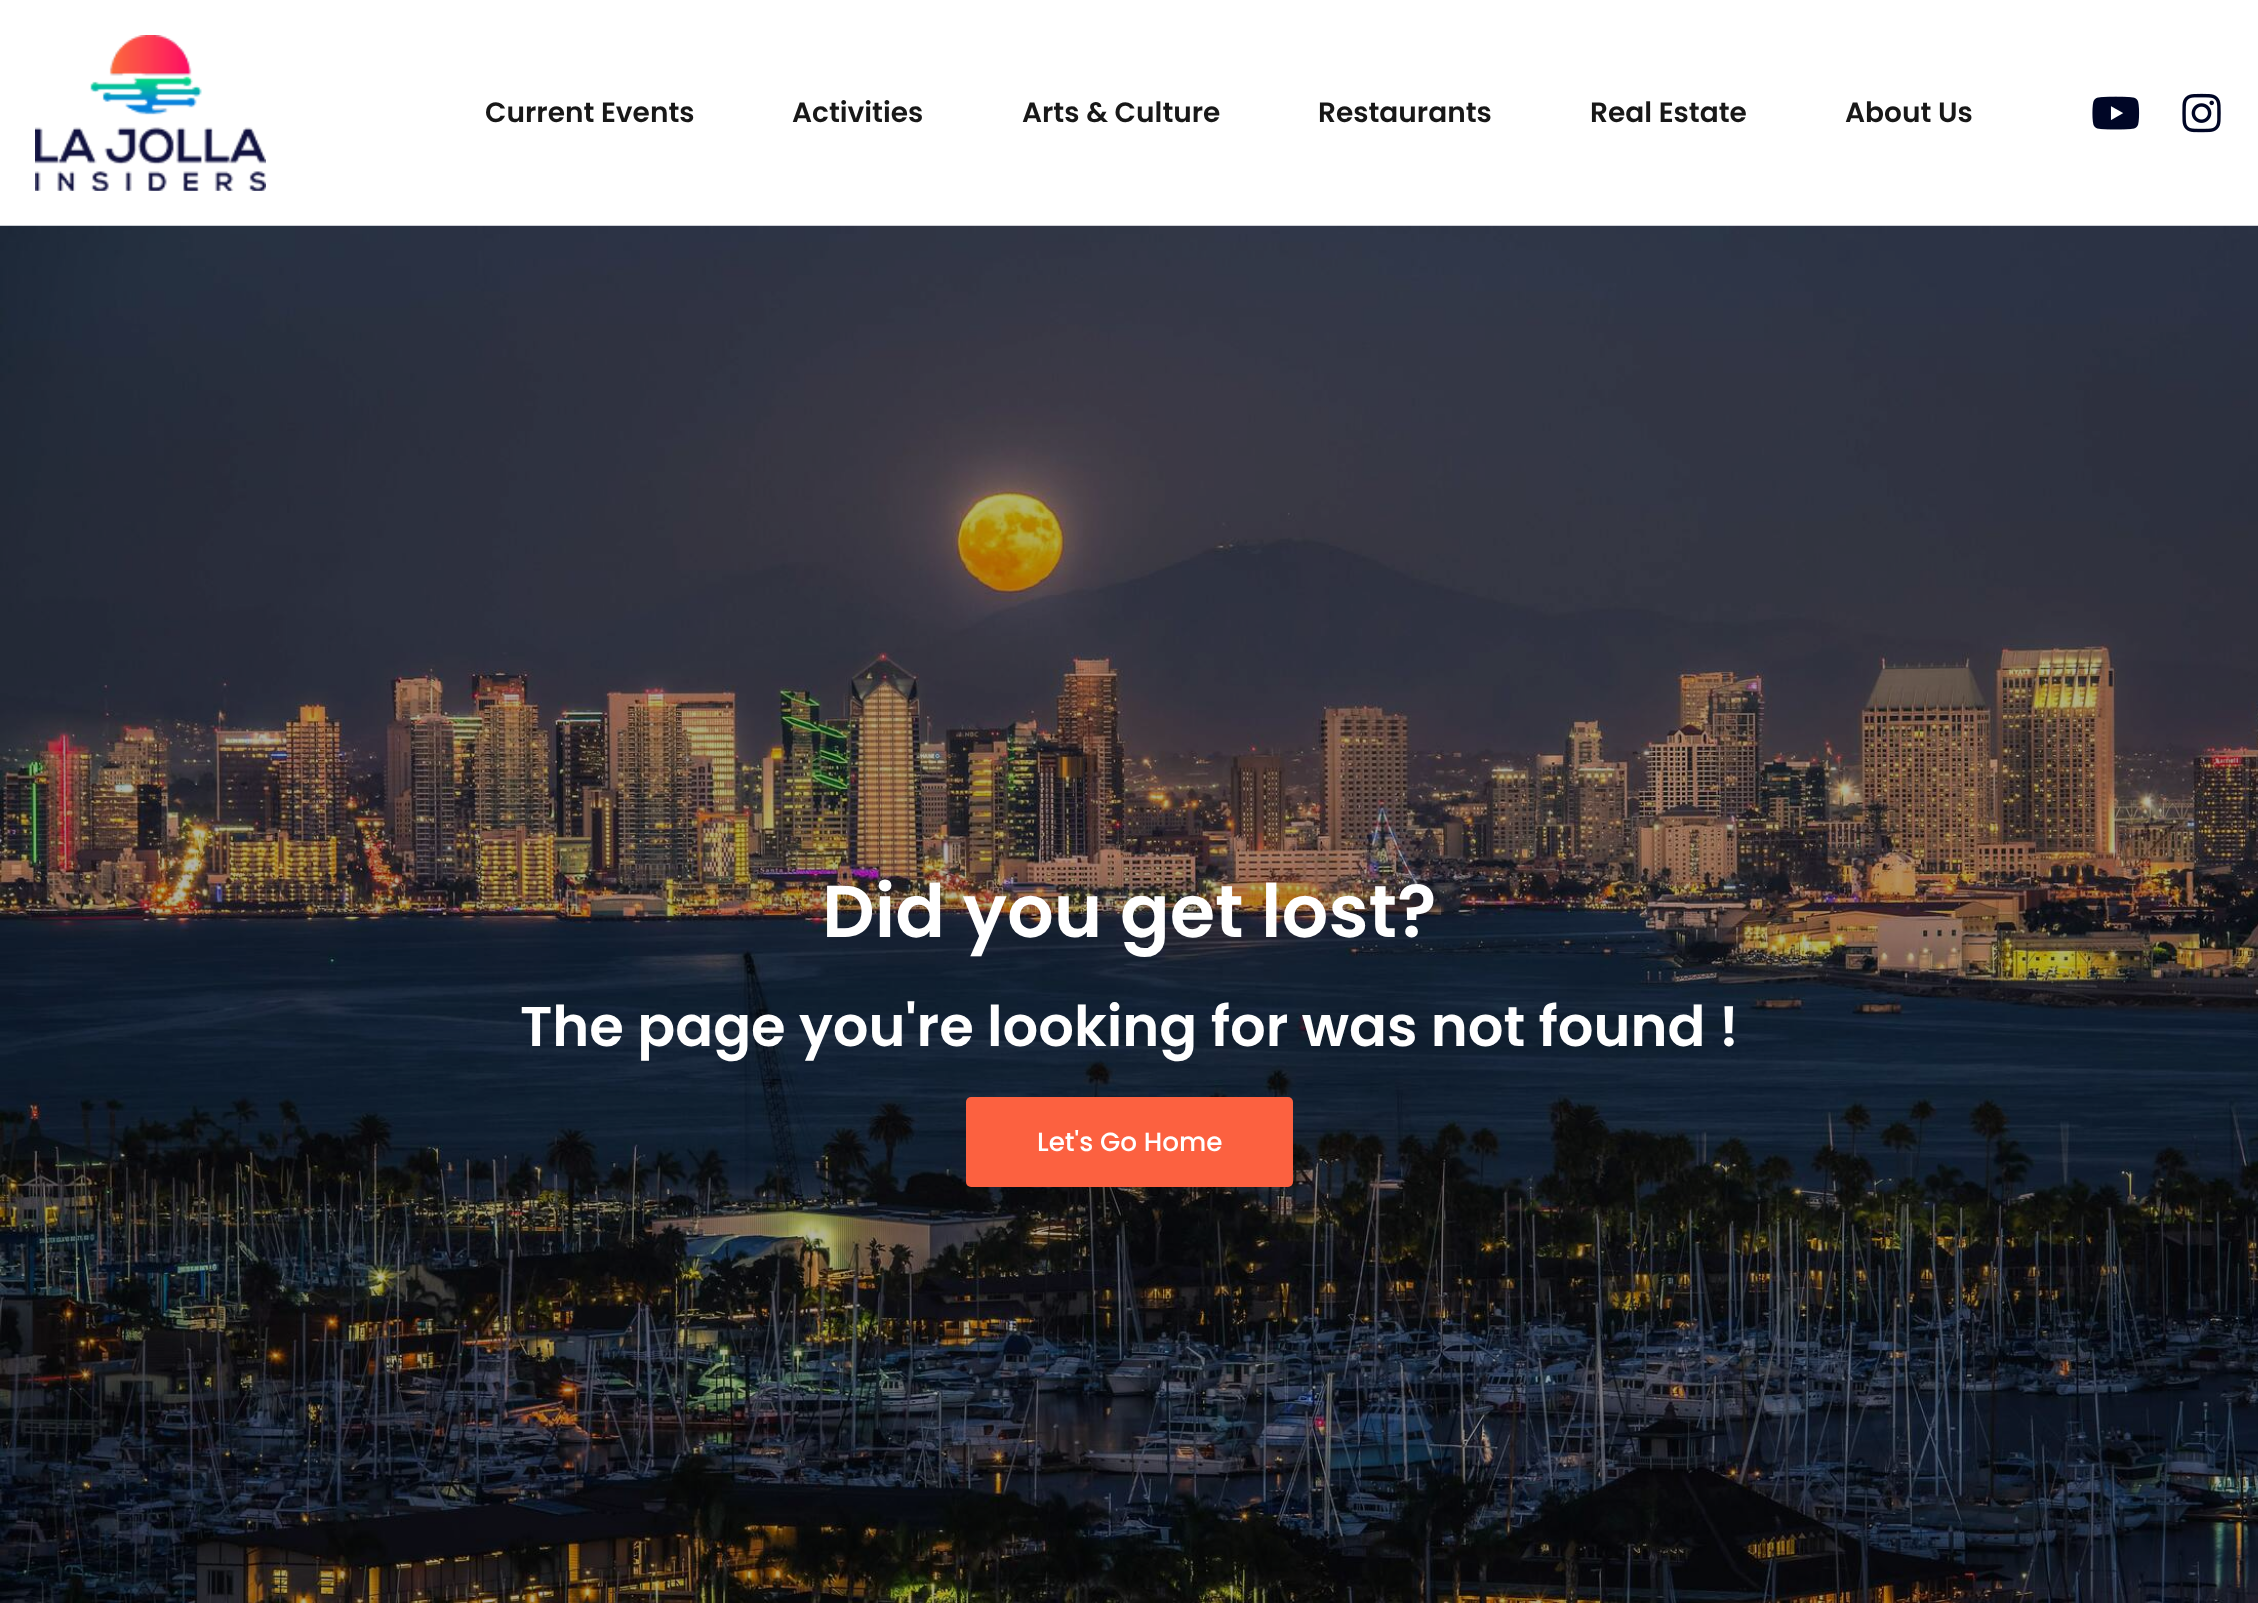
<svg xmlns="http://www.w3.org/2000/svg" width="2258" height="1603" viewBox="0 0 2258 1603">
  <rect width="100%" height="100%" fill="rgb(255,255,255)"/>
  <image x="35" y="35" width="231" height="156" href="pic1.png"/>
  <g font-family="Poppins" font-size="28" font-weight="600" fill="rgb(24,24,24)">
    <text x="485" y="122">Current Events</text>
    <text x="792" y="122">Activities</text>
    <text x="1022" y="122">Arts &amp; Culture</text>
    <text x="1318" y="122">Restaurants</text>
    <text x="1590" y="122">Real Estate</text>
    <text x="1845" y="122">About Us</text>
  </g>
  <image x="2092" y="96" width="48" height="34" href="pic2.png"/>
  <image x="2182" y="93" width="39" height="40" href="pic3.png"/>
  <image x="0" y="225" width="2258" height="1378" href="pic4.png"/>
  <text x="822" y="937" font-family="Poppins" font-size="73.5" font-weight="600" fill="rgb(255,255,255)">Did you get lost?</text>
  <text x="520" y="1046" font-family="Poppins" font-size="56" font-weight="600" fill="rgb(255,255,255)">The page you're looking for was not found !</text>
  <rect x="966" y="1097" width="327" height="90" rx="5" fill="rgb(252,97,64)"/>
  <text x="1037" y="1151" font-family="Poppins" font-size="26.25" font-weight="500" fill="rgb(255,255,255)">Let's Go Home</text>
</svg>
